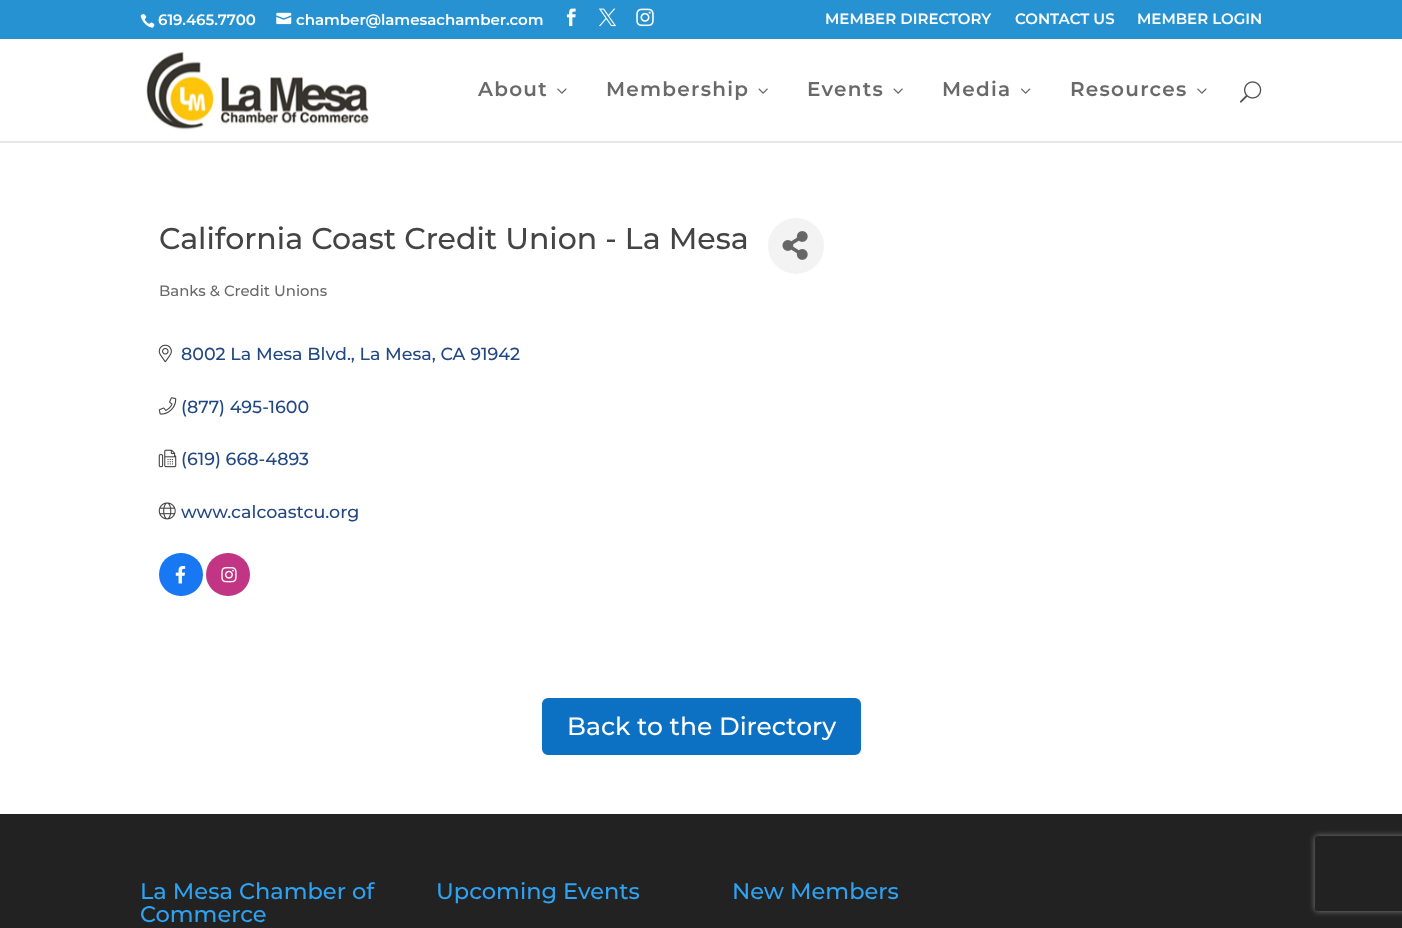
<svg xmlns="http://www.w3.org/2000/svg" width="1402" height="928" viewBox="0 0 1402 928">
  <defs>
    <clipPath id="clip1"><path d="M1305 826H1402V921H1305ZM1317.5 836H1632.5C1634 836 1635 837 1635 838.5V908.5C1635 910 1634 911 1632.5 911H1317.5C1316 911 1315 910 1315 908.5V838.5C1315 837 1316 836 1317.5 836Z" clip-rule="evenodd"/></clipPath>
  </defs>
  <rect width="100%" height="100%" fill="rgb(255,255,255)"/>
  <rect x="0" y="0" width="1402" height="39" fill="rgb(38,146,209)"/>
  <image x="140" y="14" width="15" height="14" href="pic1.png"/>
  <text x="158" y="25" font-family="Montserrat" font-size="15" font-weight="600" fill="rgb(255,255,255)">619.465.7700</text>
  <image x="276" y="12" width="16" height="13" href="pic2.png"/>
  <text x="296" y="25" font-family="Montserrat" font-size="15" font-weight="600" fill="rgb(255,255,255)">chamber@lamesachamber.com</text>
  <image x="566" y="8" width="10" height="19" href="pic3.png"/>
  <image x="598" y="8" width="18" height="19" href="pic4.png"/>
  <image x="636" y="8" width="18" height="19" href="pic5.png"/>
  <g font-family="Montserrat" font-size="15" font-weight="600" fill="rgb(255,255,255)">
    <text x="825" y="24">MEMBER DIRECTORY</text>
    <text x="1015" y="24">CONTACT US</text>
    <text x="1137" y="24">MEMBER LOGIN</text>
  </g>
  <path d="M0 141V143H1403V40H1402V141Z" fill="rgb(230,230,230)"/>
  <image x="146" y="52" width="223" height="78" href="pic6.png"/>
  <text x="478" y="96" font-family="Montserrat" font-size="20" font-weight="600" letter-spacing="1.25" fill="rgb(105,105,105)">About</text>
  <image x="557" y="88" width="10" height="6" href="pic7.png"/>
  <text x="606" y="96" font-family="Montserrat" font-size="20" font-weight="600" letter-spacing="1.25" fill="rgb(105,105,105)">Membership</text>
  <image x="758" y="88" width="10" height="6" href="pic8.png"/>
  <text x="807" y="96" font-family="Montserrat" font-size="20" font-weight="600" letter-spacing="1.25" fill="rgb(105,105,105)">Events</text>
  <image x="893" y="88" width="10" height="6" href="pic8.png"/>
  <text x="942" y="96" font-family="Montserrat" font-size="20" font-weight="600" letter-spacing="1.25" fill="rgb(105,105,105)">Media</text>
  <image x="1021" y="88" width="10" height="6" href="pic9.png"/>
  <text x="1070" y="96" font-family="Montserrat" font-size="20" font-weight="600" letter-spacing="1.25" fill="rgb(105,105,105)">Resources</text>
  <image x="1197" y="88" width="10" height="6" href="pic7.png"/>
  <image x="1240" y="81" width="22" height="22" href="pic10.png"/>
  <text x="159" y="249" font-family="Montserrat" font-size="30" font-weight="500" fill="rgb(68,68,68)">California Coast Credit Union - La Mesa</text>
  <circle cx="796" cy="246" r="28" fill="rgb(243,243,243)"/>
  <image x="782" y="231" width="26" height="29" href="pic11.png"/>
  <text x="159" y="296" font-family="Montserrat" font-size="14.9" font-weight="500" fill="rgb(105,105,105)">Banks &amp; Credit Unions</text>
  <image x="158" y="344" width="14" height="19" href="pic12.png"/>
  <text x="181" y="360" font-family="Montserrat" font-size="17.5" font-weight="500" fill="rgb(34,72,132)">8002 La Mesa Blvd., La Mesa, CA 91942</text>
  <image x="158" y="397" width="19" height="18" href="pic13.png"/>
  <text x="181" y="413" font-family="Montserrat" font-size="17.5" font-weight="500" fill="rgb(34,72,132)">(877) 495-1600</text>
  <image x="158" y="449" width="19" height="19" href="pic14.png"/>
  <text x="181" y="465" font-family="Montserrat" font-size="17.5" font-weight="500" fill="rgb(34,72,132)">(619) 668-4893</text>
  <image x="158" y="502" width="18" height="18" href="pic15.png"/>
  <text x="181" y="518" font-family="Montserrat" font-size="17.5" font-weight="500" fill="rgb(34,72,132)">www.calcoastcu.org</text>
  <rect x="159" y="553" width="44" height="43" rx="21.5" fill="rgb(24,119,242)"/>
  <image x="175" y="565" width="11" height="19" href="pic16.png"/>
  <rect x="206" y="553" width="44" height="43" rx="21.5" fill="rgb(193,53,132)"/>
  <image x="221" y="567" width="16" height="16" href="pic17.png"/>
  <rect x="540.5" y="696.5" width="322" height="60" rx="7.5" fill="rgb(12,113,195)" stroke="rgb(255,255,255)" stroke-width="3"/>
  <text x="567" y="735" font-family="Montserrat" font-size="25" font-weight="500" fill="rgb(255,255,255)">Back to the Directory</text>
  <rect x="0" y="814" width="1402" height="114" fill="rgb(34,34,34)"/>
  <g font-family="Montserrat" font-size="22.5" font-weight="500" fill="rgb(46,163,242)">
    <text>
      <tspan x="140" y="899">La Mesa Chamber of</tspan>
      <tspan x="140" y="922">Commerce</tspan>
    </text>
    <text x="436" y="899">Upcoming Events</text>
    <text x="732" y="899">New Members</text>
  </g>
  <g clip-path="url(#clip1)">
    <rect x="1315" y="836" width="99" height="75" rx="2.5" fill="rgb(128,128,128)" filter="blur(3px)"/>
  </g>
</svg>
